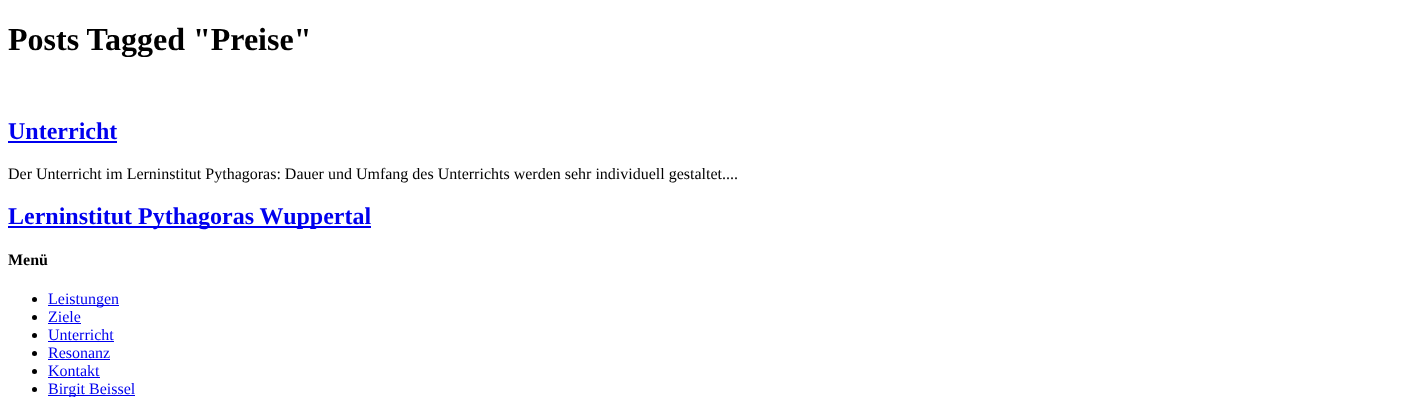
<svg xmlns="http://www.w3.org/2000/svg" width="1409" height="397" viewBox="0 0 1409 397">
  <rect width="100%" height="100%" fill="rgb(255,255,255)"/>
  <text x="8" y="50" font-family="Liberation Serif" font-size="32" font-weight="bold" fill="rgb(0,0,0)">Posts Tagged "Preise"</text>
  <text x="8" y="139" font-family="Liberation Serif" font-size="24" font-weight="bold" fill="rgb(0,0,238)">Unterricht</text>
  <rect x="8" y="141" width="109" height="2" fill="rgb(0,0,238)"/>
  <text x="8" y="179" font-family="Liberation Serif" font-size="16" fill="rgb(0,0,0)">Der Unterricht im Lerninstitut Pythagoras: Dauer und Umfang des Unterrichts werden sehr individuell gestaltet....</text>
  <rect x="8" y="226" width="363" height="2" fill="rgb(0,0,238)"/>
  <text x="8" y="224" font-family="Liberation Serif" font-size="24" font-weight="bold" fill="rgb(0,0,238)">Lerninstitut Pythagoras Wuppertal</text>
  <text x="8" y="265" font-family="Liberation Serif" font-size="16" font-weight="bold" fill="rgb(0,0,0)">Menü</text>
  <circle cx="34.5" cy="299.5" r="2.5" fill="rgb(0,0,0)"/>
  <rect x="48" y="305" width="71" height="1" fill="rgb(0,0,238)"/>
  <text x="48" y="304" font-family="Liberation Serif" font-size="16" fill="rgb(0,0,238)">Leistungen</text>
  <circle cx="34.5" cy="317.5" r="2.5" fill="rgb(0,0,0)"/>
  <text x="48" y="322" font-family="Liberation Serif" font-size="16" fill="rgb(0,0,238)">Ziele</text>
  <rect x="48" y="323" width="33" height="1" fill="rgb(0,0,238)"/>
  <circle cx="34.5" cy="335.5" r="2.5" fill="rgb(0,0,0)"/>
  <text x="48" y="340" font-family="Liberation Serif" font-size="16" fill="rgb(0,0,238)">Unterricht</text>
  <rect x="48" y="341" width="66" height="1" fill="rgb(0,0,238)"/>
  <circle cx="34.5" cy="353.5" r="2.5" fill="rgb(0,0,0)"/>
  <text x="48" y="358" font-family="Liberation Serif" font-size="16" fill="rgb(0,0,238)">Resonanz</text>
  <rect x="48" y="359" width="62" height="1" fill="rgb(0,0,238)"/>
  <circle cx="34.5" cy="371.5" r="2.5" fill="rgb(0,0,0)"/>
  <text x="48" y="376" font-family="Liberation Serif" font-size="16" fill="rgb(0,0,238)">Kontakt</text>
  <rect x="48" y="377" width="52" height="1" fill="rgb(0,0,238)"/>
  <circle cx="34.5" cy="389.5" r="2.5" fill="rgb(0,0,0)"/>
  <rect x="48" y="395" width="87" height="1" fill="rgb(0,0,238)"/>
  <text x="48" y="394" font-family="Liberation Serif" font-size="16" fill="rgb(0,0,238)">Birgit Beissel</text>
</svg>
